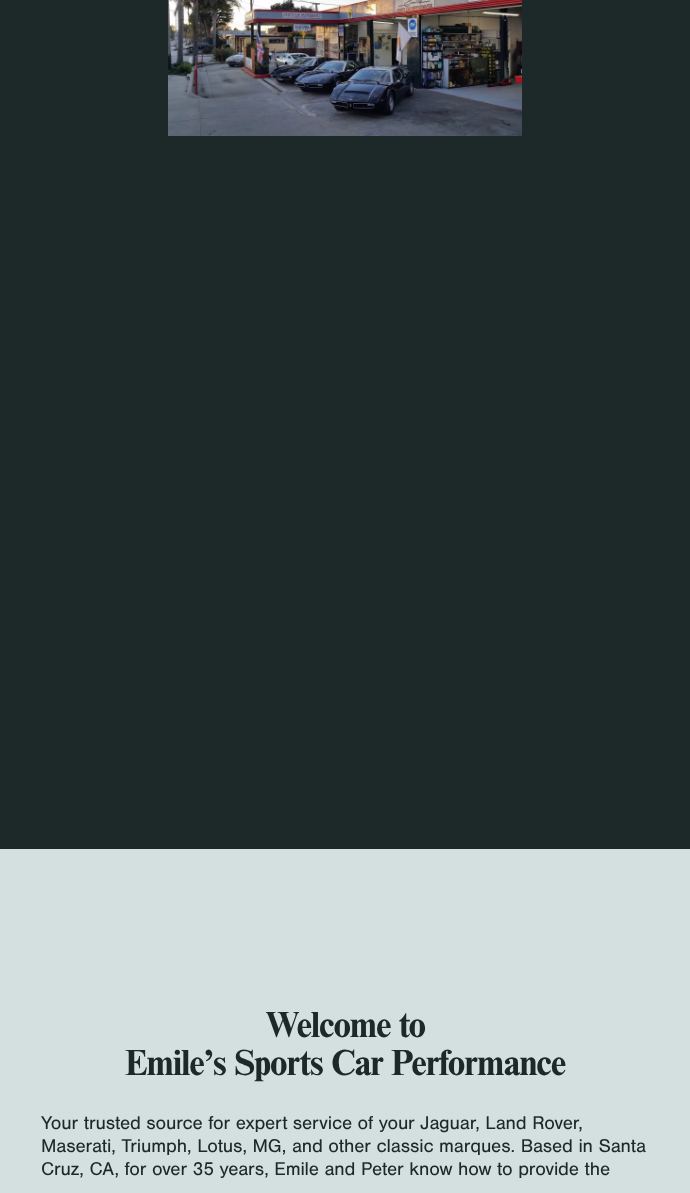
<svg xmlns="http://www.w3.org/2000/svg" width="690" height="1193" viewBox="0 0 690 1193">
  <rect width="100%" height="100%" fill="rgb(212,224,224)"/>
  <rect x="0" y="0" width="690" height="849" fill="rgb(29,40,40)"/>
  <image x="168" y="0" width="354" height="136" href="pic1.png"/>
  <g font-family="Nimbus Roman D" font-size="37.6" font-weight="bold" letter-spacing="-1.1" fill="rgb(29,40,40)">
    <text x="265" y="1037">Welcome to</text>
    <text x="125" y="1075">Emile’s Sports Car Performance</text>
  </g>
  <g font-family="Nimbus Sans" font-size="19.25" letter-spacing="-0.15" fill="rgb(29,40,40)">
    <text>
      <tspan x="41" y="1129">Your trusted source for expert service of your Jaguar, Land Rover,</tspan>
      <tspan x="41" y="1152">Maserati, Triumph, Lotus, MG, and other classic marques. Based in Santa</tspan>
      <tspan x="41" y="1175">Cruz, CA, for over 35 years, Emile and Peter know how to provide the</tspan>
    </text>
  </g>
</svg>
